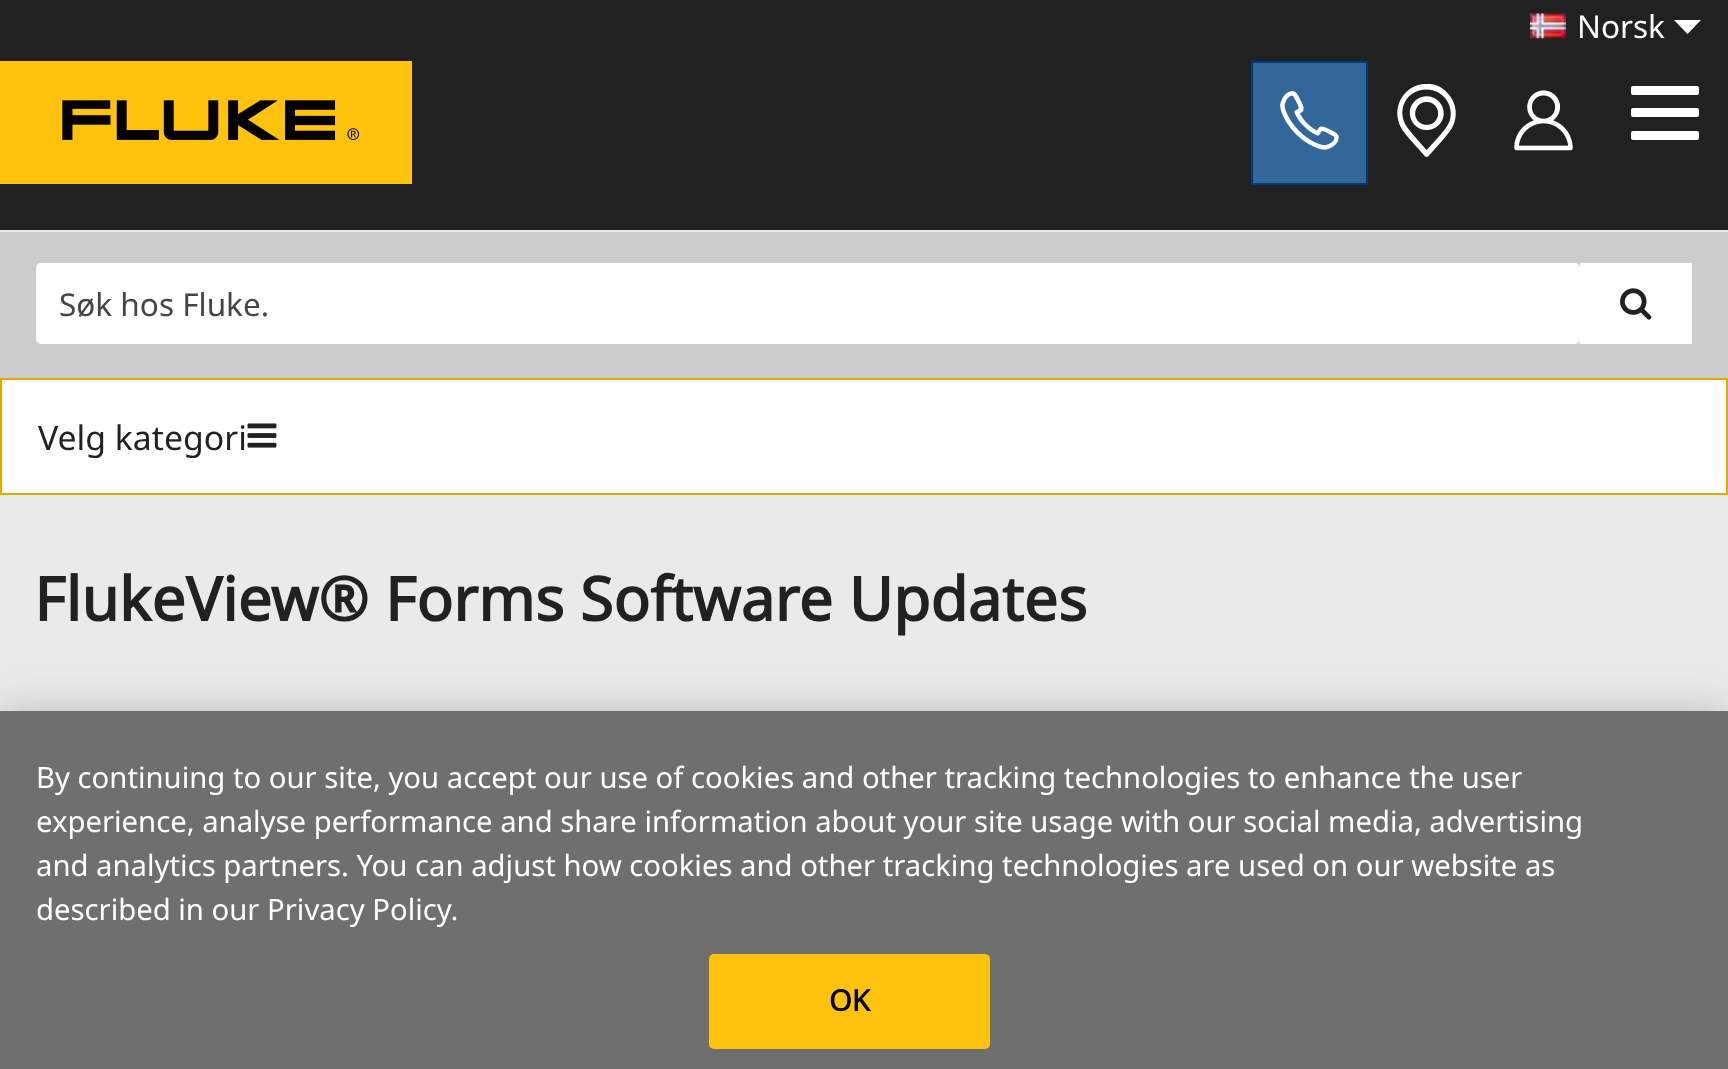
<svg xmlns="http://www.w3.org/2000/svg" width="1728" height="1069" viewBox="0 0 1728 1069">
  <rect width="100%" height="100%" fill="rgb(234,234,234)"/>
  <rect x="0" y="0" width="1728" height="230" fill="rgb(33,33,33)"/>
  <image x="1530" y="13" width="36" height="26" href="pic1.png"/>
  <text x="1577" y="38" font-family="Noto Sans" font-size="31.5" fill="rgb(255,255,255)">Norsk</text>
  <path d="M1674 20H1701L1687.5 34Z" fill="rgb(255,255,255)"/>
  <image x="0" y="61" width="412" height="123" href="pic2.png"/>
  <rect x="1252" y="62" width="115" height="122" fill="rgb(51,102,153)" stroke="rgb(0,59,120)" stroke-width="2"/>
  <image x="1280" y="91" width="59" height="59" href="pic3.png"/>
  <image x="1397" y="83" width="59" height="74" href="pic4.png"/>
  <image x="1514" y="90" width="59" height="61" href="pic5.png"/>
  <rect x="1631" y="86" width="68" height="9" rx="2" fill="rgb(255,255,255)"/>
  <rect x="1631" y="108" width="68" height="9" rx="2" fill="rgb(255,255,255)"/>
  <rect x="1631" y="131" width="68" height="9" rx="2" fill="rgb(255,255,255)"/>
  <rect x="0" y="232" width="1728" height="146" fill="rgb(204,204,204)"/>
  <rect x="36" y="263" width="1544" height="81" rx="5" fill="rgb(255,255,255)"/>
  <text x="59" y="316" font-family="Noto Sans" font-size="31.5" fill="rgb(69,69,69)">Søk hos Fluke.</text>
  <rect x="1580" y="263" width="112" height="81" fill="rgb(255,255,255)"/>
  <image x="1620" y="288" width="32" height="32" href="pic6.png"/>
  <rect x="1" y="379" width="1726" height="115" fill="rgb(255,255,255)" stroke="rgb(228,170,0)" stroke-width="2"/>
  <text x="38" y="450" font-family="Noto Sans" font-size="33.75" fill="rgb(33,33,33)">Velg kategori</text>
  <image x="247" y="423" width="30" height="25" href="pic7.png"/>
  <text x="34" y="621" font-family="Noto Sans" font-size="60.75" font-weight="bold" fill="rgb(33,33,33)">FlukeView® Forms Software Updates</text>
  <rect x="0" y="711" width="1728" height="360" fill="rgba(0,0,0,0.2)" filter="blur(20px)"/>
  <rect x="0" y="711" width="1728" height="358" fill="rgb(111,111,111)"/>
  <g font-family="Noto Sans" font-size="29.27" fill="rgb(255,255,255)">
    <text>
      <tspan x="36" y="788">By continuing to our site, you accept our use of cookies and other tracking technologies to enhance the user</tspan>
      <tspan x="36" y="832">experience, analyse performance and share information about your site usage with our social media, advertising</tspan>
      <tspan x="36" y="876">and analytics partners. You can adjust how cookies and other tracking technologies are used on our website as</tspan>
      <tspan x="36" y="920">described in our Privacy Policy.</tspan>
    </text>
  </g>
  <rect x="710" y="955" width="279" height="93" rx="4" fill="rgb(255,194,14)" stroke="rgb(255,194,14)" stroke-width="2"/>
  <text x="829" y="1011" font-family="Noto Sans" font-size="29.27" font-weight="bold" fill="rgb(0,0,0)">OK</text>
</svg>
